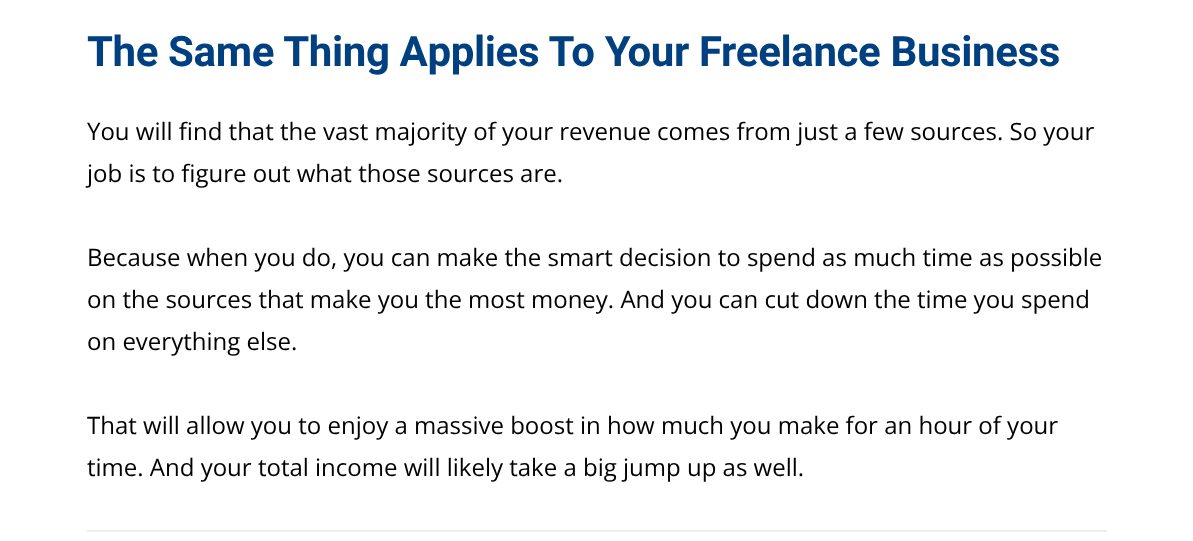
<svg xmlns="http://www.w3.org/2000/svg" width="1193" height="541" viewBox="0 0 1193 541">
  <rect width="100%" height="100%" fill="rgb(255,255,255)"/>
  <text x="87" y="66" font-family="Heebo" font-size="42" font-weight="bold" letter-spacing="-0.4" fill="rgb(0,64,128)">The Same Thing Applies To Your Freelance Business</text>
  <g font-family="Open Sans" font-size="24" fill="rgb(0,0,0)">
    <text>
      <tspan x="87" y="140">You will find that the vast majority of your revenue comes from just a few sources. So your</tspan>
      <tspan x="87" y="182">job is to figure out what those sources are.</tspan>
    </text>
    <text>
      <tspan x="87" y="266">Because when you do, you can make the smart decision to spend as much time as possible</tspan>
      <tspan x="87" y="308">on the sources that make you the most money. And you can cut down the time you spend</tspan>
      <tspan x="87" y="350">on everything else.</tspan>
    </text>
    <text>
      <tspan x="87" y="434">That will allow you to enjoy a massive boost in how much you make for an hour of your</tspan>
      <tspan x="87" y="476">time. And your total income will likely take a big jump up as well.</tspan>
    </text>
  </g>
  <rect x="87" y="530" width="1020" height="2" fill="rgb(238,238,238)"/>
</svg>
